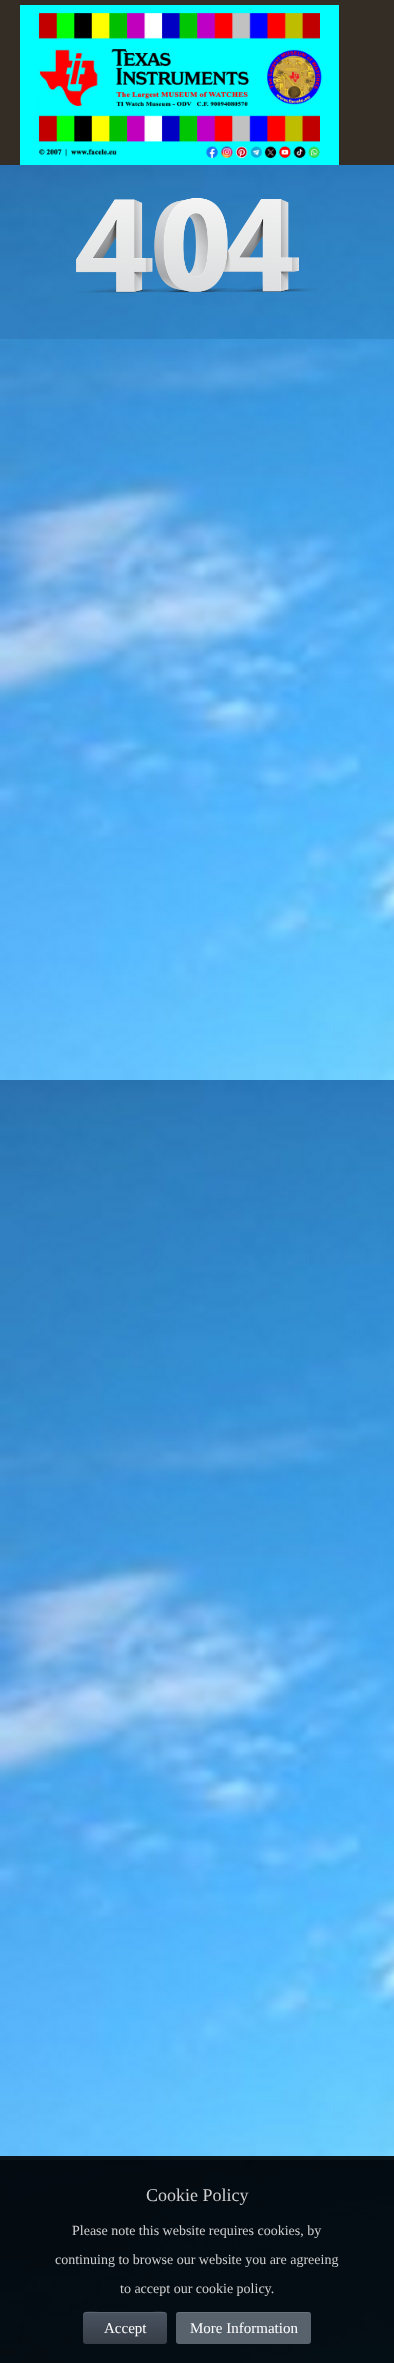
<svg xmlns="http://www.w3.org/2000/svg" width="394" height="2363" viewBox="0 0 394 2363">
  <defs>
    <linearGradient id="g1" gradientUnits="userSpaceOnUse" x1="125" y1="2312" x2="125" y2="2344"><stop offset="0" stop-color="rgb(74,83,97)"/><stop offset="1" stop-color="rgb(54,61,71)"/></linearGradient>
  </defs>
  <rect width="100%" height="100%" fill="rgb(255,255,255)"/>
  <image x="0" y="339" width="394" height="2024" href="pic1.png"/>
  <rect x="0" y="0" width="394" height="165" fill="rgb(52,45,37)"/>
  <image x="20" y="5" width="319" height="160" href="pic2.png"/>
  <image x="0" y="165" width="394" height="174" href="pic3.png"/>
  <image x="76" y="197" width="242" height="96" href="pic4.png"/>
  <rect x="0" y="2156" width="394" height="207" fill="rgba(0,0,0,0.9)"/>
  <text x="146" y="2201" font-family="Liberation Serif" font-size="18" fill="rgb(207,207,207)">Cookie Policy</text>
  <g font-family="Liberation Serif" font-size="14" fill="rgb(207,207,207)">
    <text x="72" y="2235">Please note this website requires cookies, by</text>
    <text x="55" y="2264">continuing to browse our website you are agreeing</text>
    <text x="120" y="2293">to accept our cookie policy.</text>
  </g>
  <rect x="83" y="2312" width="84" height="32" rx="3" fill="url(#g1)"/>
  <text x="104" y="2333" font-family="Liberation Serif" font-size="15" fill="rgb(255,255,255)">Accept</text>
  <path d="M86 2313H164C166 2313 167 2314 167 2316C167 2309 155 2312 151 2312H99C95 2312 83 2309 83 2316C83 2314 84 2313 86 2313Z" fill="rgba(255,255,255,0.1)"/>
  <rect x="176" y="2312" width="135" height="32" rx="3" fill="rgb(87,98,109)"/>
  <text x="190" y="2333" font-family="Liberation Serif" font-size="15" fill="rgb(255,255,255)">More Information</text>
  <path d="M179 2313H308C310 2313 311 2314 311 2316C311 2314 311 2312 309 2312H178C176 2312 176 2314 176 2316C176 2314 177 2313 179 2313Z" fill="rgba(255,255,255,0.1)"/>
</svg>
